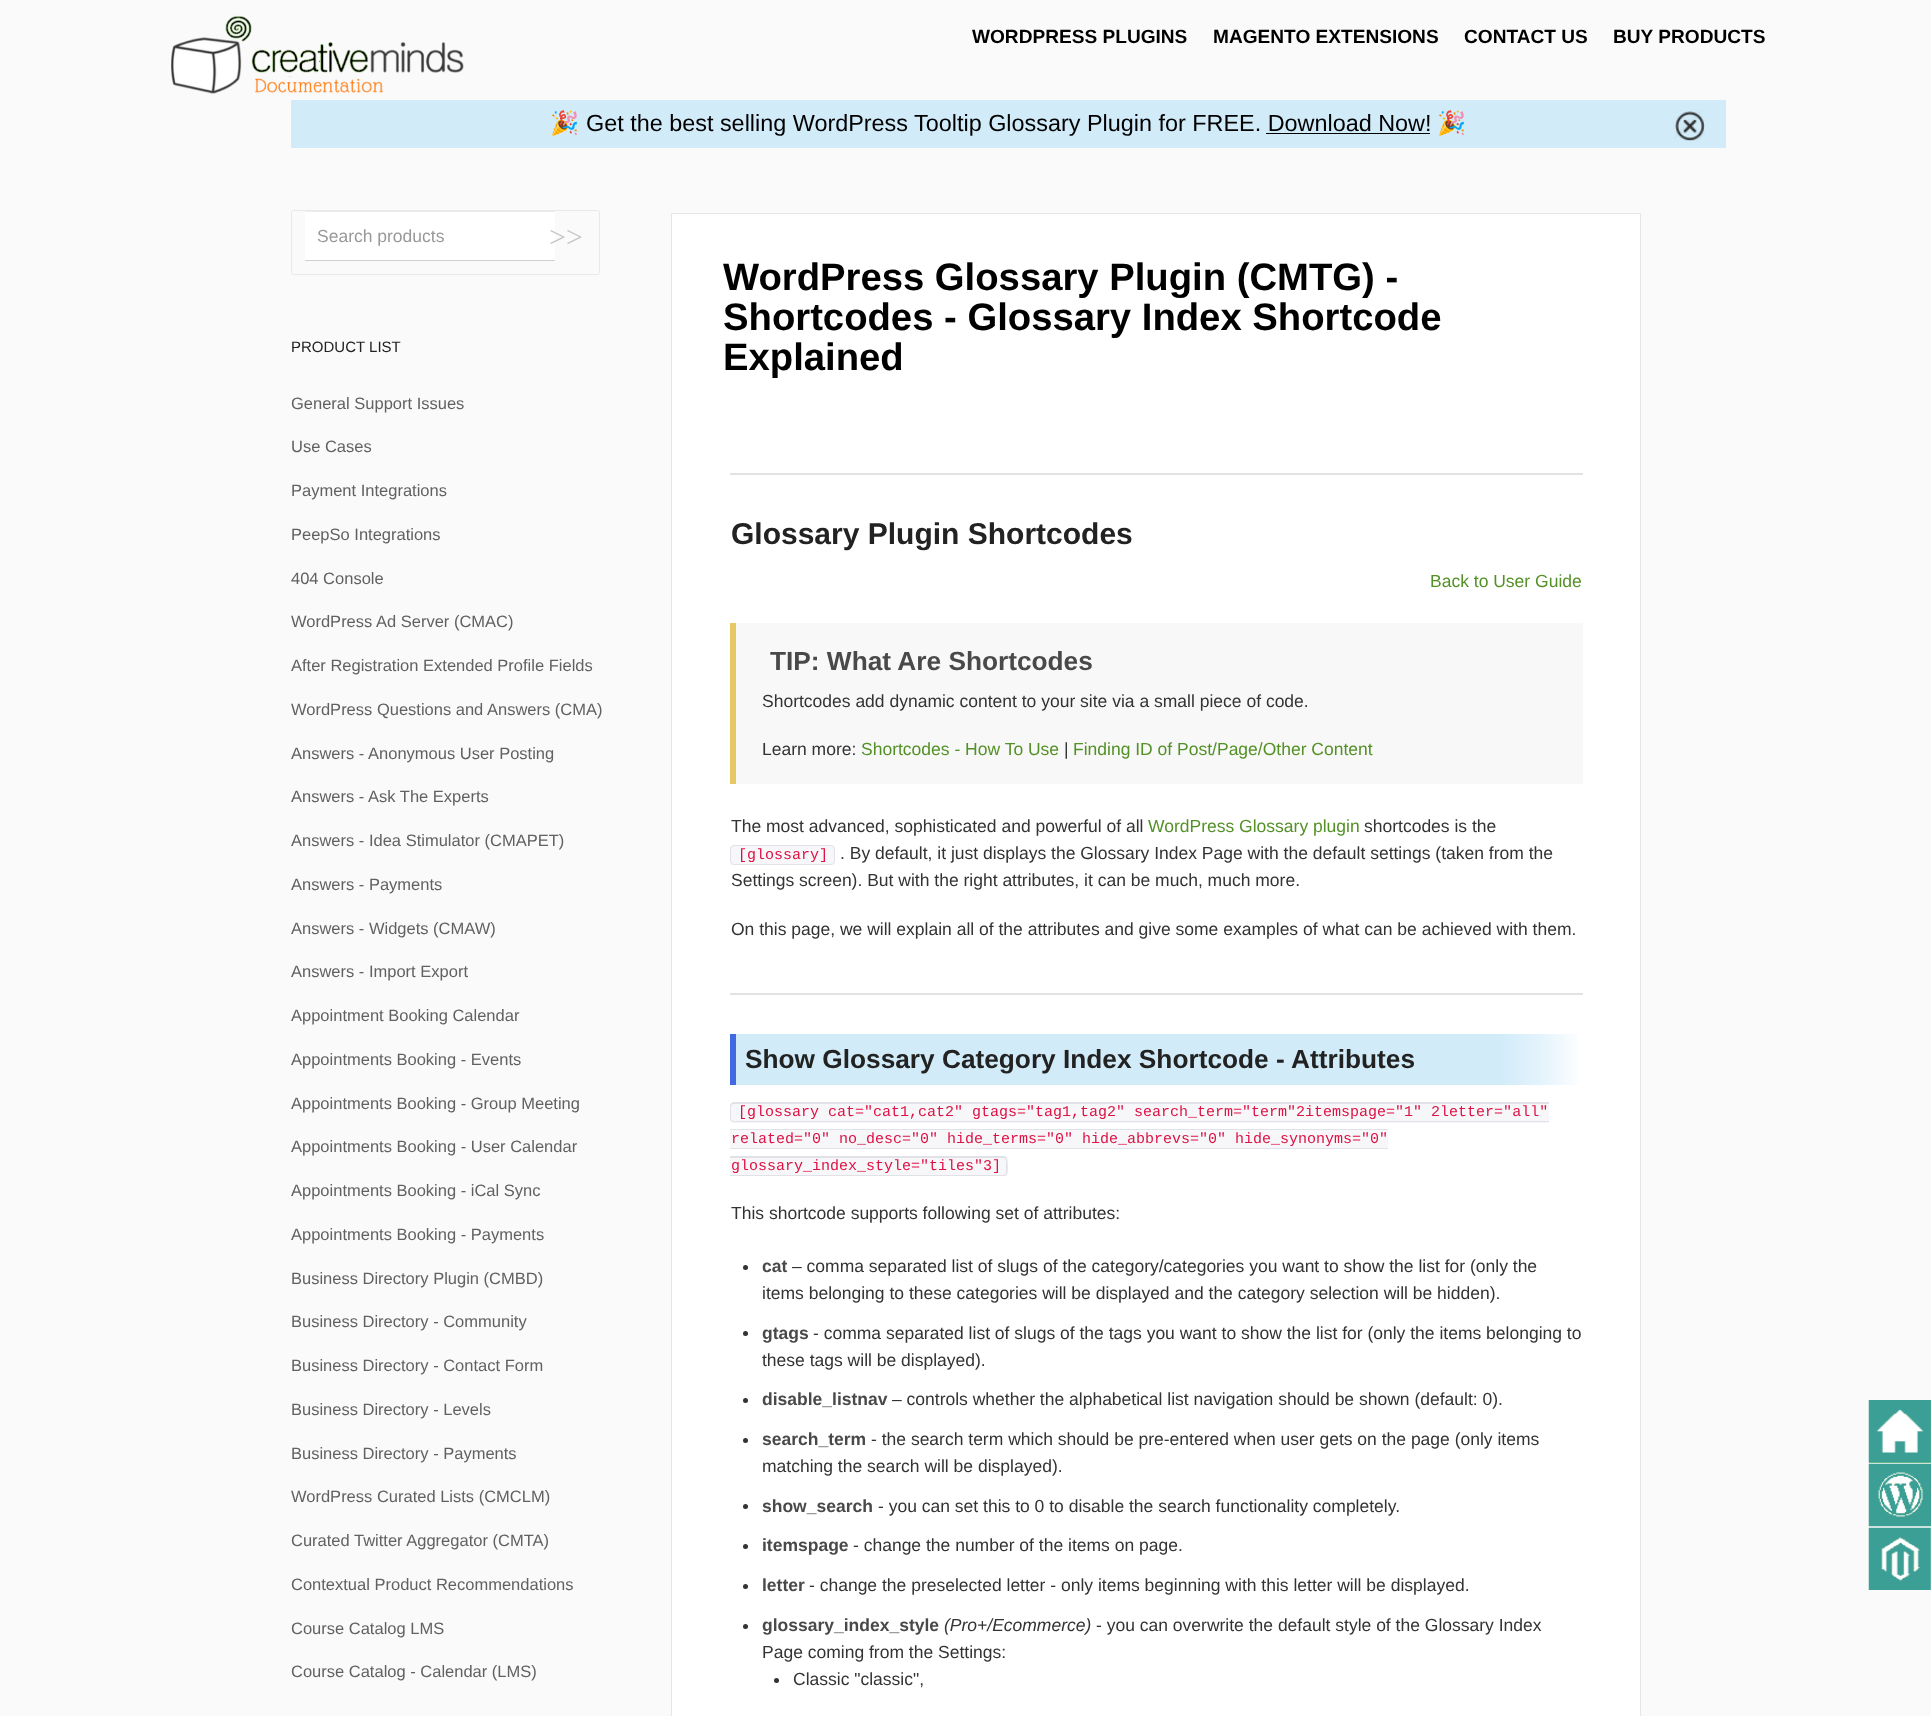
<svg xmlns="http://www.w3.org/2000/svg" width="1931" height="1716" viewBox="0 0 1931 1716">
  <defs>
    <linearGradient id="g1" gradientUnits="userSpaceOnUse" x1="736" y1="1059" x2="1583" y2="1059"><stop offset="0.9" stop-color="rgb(209,235,249)"/><stop offset="0.95" stop-color="rgb(228,243,252)"/><stop offset="1" stop-color="rgb(255,255,255)"/></linearGradient>
  </defs>
  <rect width="100%" height="100%" fill="rgb(250,250,250)"/>
  <image x="171" y="15" width="293" height="79" href="pic1.png"/>
  <g font-family="Liberation Sans" font-size="19.1" font-weight="bold" fill="rgb(0,0,0)">
    <text x="972" y="43">WORDPRESS PLUGINS</text>
    <text x="1213" y="43">MAGENTO EXTENSIONS</text>
    <text x="1464" y="43">CONTACT US</text>
    <text x="1613" y="43">BUY PRODUCTS</text>
  </g>
  <rect x="291" y="100" width="1435" height="48" fill="rgb(209,235,249)"/>
  <text x="550" y="131" font-family="Noto Color Emoji" font-size="23.4" fill="rgb(0,0,0)">🎉</text>
  <text x="586" y="131" font-family="Liberation Sans" font-size="23.4" fill="rgb(0,0,0)">Get the best selling WordPress Tooltip Glossary Plugin for FREE. Download Now!</text>
  <text x="1437" y="131" font-family="Noto Color Emoji" font-size="23.4" fill="rgb(0,0,0)">🎉</text>
  <rect x="1266" y="133" width="164" height="1" fill="rgb(0,0,0)"/>
  <image x="1675" y="111" width="30" height="30" href="pic2.png"/>
  <rect x="291.5" y="210.5" width="308" height="64" rx="2" fill="none" stroke="rgb(233,233,233)"/>
  <rect x="305" y="212" width="250" height="48" fill="rgb(255,255,255)"/>
  <rect x="305" y="211" width="250" height="1" fill="rgb(236,236,236)"/>
  <rect x="305" y="260" width="250" height="1" fill="rgb(208,208,208)"/>
  <text x="317" y="242" font-family="Liberation Sans" font-size="17.5" fill="rgb(153,153,153)">Search products</text>
  <text x="549" y="247" font-family="Liberation Serif" font-size="30" fill="rgb(198,198,198)">&gt;&gt;</text>
  <text x="291" y="352" font-family="Liberation Sans" font-size="15" fill="rgb(34,34,34)">PRODUCT LIST</text>
  <g font-family="Liberation Sans" font-size="16.5" fill="rgb(97,97,97)">
    <text x="291" y="409">General Support Issues</text>
    <text x="291" y="452">Use Cases</text>
    <text x="291" y="496">Payment Integrations</text>
    <text x="291" y="540">PeepSo Integrations</text>
    <text x="291" y="584">404 Console</text>
    <text x="291" y="627">WordPress Ad Server (CMAC)</text>
    <text x="291" y="671">After Registration Extended Profile Fields</text>
    <text x="291" y="715">WordPress Questions and Answers (CMA)</text>
    <text x="291" y="759">Answers - Anonymous User Posting</text>
    <text x="291" y="802">Answers - Ask The Experts</text>
    <text x="291" y="846">Answers - Idea Stimulator (CMAPET)</text>
    <text x="291" y="890">Answers - Payments</text>
    <text x="291" y="934">Answers - Widgets (CMAW)</text>
    <text x="291" y="977">Answers - Import Export</text>
    <text x="291" y="1021">Appointment Booking Calendar</text>
    <text x="291" y="1065">Appointments Booking - Events</text>
    <text x="291" y="1109">Appointments Booking - Group Meeting</text>
    <text x="291" y="1152">Appointments Booking - User Calendar</text>
    <text x="291" y="1196">Appointments Booking - iCal Sync</text>
    <text x="291" y="1240">Appointments Booking - Payments</text>
    <text x="291" y="1284">Business Directory Plugin (CMBD)</text>
    <text x="291" y="1327">Business Directory - Community</text>
    <text x="291" y="1371">Business Directory - Contact Form</text>
    <text x="291" y="1415">Business Directory - Levels</text>
    <text x="291" y="1459">Business Directory - Payments</text>
    <text x="291" y="1502">WordPress Curated Lists (CMCLM)</text>
    <text x="291" y="1546">Curated Twitter Aggregator (CMTA)</text>
    <text x="291" y="1590">Contextual Product Recommendations</text>
    <text x="291" y="1634">Course Catalog LMS</text>
    <text x="291" y="1677">Course Catalog - Calendar (LMS)</text>
  </g>
  <rect x="671.5" y="213.5" width="969" height="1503" fill="rgb(255,255,255)" stroke="rgb(233,229,229)"/>
  <g font-family="Liberation Sans" font-size="38.25" font-weight="bold" fill="rgb(0,0,0)">
    <text>
      <tspan x="723" y="290">WordPress Glossary Plugin (CMTG) -</tspan>
      <tspan x="723" y="330">Shortcodes - Glossary Index Shortcode</tspan>
      <tspan x="723" y="370">Explained</tspan>
    </text>
  </g>
  <rect x="730" y="473" width="853" height="2" fill="rgb(226,226,226)"/>
  <text x="731" y="544" font-family="Liberation Sans" font-size="30" font-weight="bold" fill="rgb(34,34,34)">Glossary Plugin Shortcodes</text>
  <text x="1430" y="587" font-family="Liberation Sans" font-size="17.5" fill="rgb(83,144,38)">Back to User Guide</text>
  <rect x="736" y="623" width="847" height="161" fill="rgb(248,248,248)"/>
  <rect x="730" y="623" width="6" height="161" fill="rgb(230,200,100)"/>
  <text x="770" y="670" font-family="Liberation Sans" font-size="26.25" font-weight="bold" fill="rgb(73,73,73)">TIP: What Are Shortcodes</text>
  <g font-family="Liberation Sans" font-size="17.5" fill="rgb(51,51,51)">
    <text x="762" y="707">Shortcodes add dynamic content to your site via a small piece of code.</text>
    <text x="762" y="755">Learn more:</text>
  </g>
  <text x="861" y="755" font-family="Liberation Sans" font-size="17.5" fill="rgb(83,144,38)">Shortcodes - How To Use</text>
  <text x="1064" y="755" font-family="Liberation Sans" font-size="17.5" fill="rgb(51,51,51)">|</text>
  <text x="1073" y="755" font-family="Liberation Sans" font-size="17.5" fill="rgb(83,144,38)">Finding ID of Post/Page/Other Content</text>
  <text x="731" y="832" font-family="Liberation Sans" font-size="17.5" fill="rgb(51,51,51)">The most advanced, sophisticated and powerful of all</text>
  <text x="1148" y="832" font-family="Liberation Sans" font-size="17.5" fill="rgb(83,144,38)">WordPress Glossary plugin</text>
  <text x="1364" y="832" font-family="Liberation Sans" font-size="17.5" fill="rgb(51,51,51)">shortcodes is the</text>
  <rect x="730.5" y="845.5" width="104" height="19" rx="3.5" fill="rgb(247,247,249)" stroke="rgb(225,225,232)"/>
  <text x="738" y="859" font-family="Liberation Mono" font-size="15" fill="rgb(221,17,68)">[glossary]</text>
  <g font-family="Liberation Sans" font-size="17.5" fill="rgb(51,51,51)">
    <text x="840" y="859">. By default, it just displays the Glossary Index Page with the default settings (taken from the</text>
    <text x="731" y="886">Settings screen). But with the right attributes, it can be much, much more.</text>
    <text x="731" y="935">On this page, we will explain all of the attributes and give some examples of what can be achieved with them.</text>
  </g>
  <rect x="730" y="993" width="853" height="2" fill="rgb(226,226,226)"/>
  <rect x="736" y="1034" width="843" height="51" fill="url(#g1)"/>
  <rect x="730" y="1034" width="6" height="51" fill="rgb(65,105,225)"/>
  <text x="745" y="1068" font-family="Liberation Sans" font-size="26.25" font-weight="bold" fill="rgb(34,34,34)">Show Glossary Category Index Shortcode - Attributes</text>
  <path d="M734 1103H1549V1123H734C732 1123 730 1121 730 1119V1107C730 1105 732 1103 734 1103Z" fill="rgb(247,247,249)"/>
  <path d="M734 1102H1549V1122H734C732 1122 730 1121 730 1119V1106C730 1104 732 1102 734 1102ZM734 1104H1549V1121H734C732 1121 731 1120 731 1119V1106C731 1105 732 1104 734 1104Z" fill="rgb(225,225,232)" fill-rule="evenodd"/>
  <text x="738" y="1116" font-family="Liberation Mono" font-size="15" fill="rgb(221,17,68)">[glossary cat="cat1,cat2" gtags="tag1,tag2" search_term="term"2itemspage="1" 2letter="all"</text>
  <rect x="730" y="1130" width="658" height="18" fill="rgb(247,247,249)"/>
  <text x="731" y="1143" font-family="Liberation Mono" font-size="15" fill="rgb(221,17,68)">related="0" no_desc="0" hide_terms="0" hide_abbrevs="0" hide_synonyms="0"</text>
  <rect x="730" y="1129" width="658" height="1" fill="rgb(225,225,232)"/>
  <rect x="730" y="1148" width="658" height="1" fill="rgb(225,225,232)"/>
  <path d="M730 1156H1004C1006 1156 1008 1158 1008 1160V1172C1008 1174 1006 1176 1004 1176H730Z" fill="rgb(247,247,249)"/>
  <path d="M730 1156H1004L1006 1157C1008 1159 1008 1172 1007 1174L1005 1176H730ZM730 1158H1004C1005 1158 1006 1159 1006 1160V1172C1006 1174 1005 1175 1004 1175H730Z" fill="rgb(225,225,232)" fill-rule="evenodd"/>
  <text x="731" y="1170" font-family="Liberation Mono" font-size="15" fill="rgb(221,17,68)">glossary_index_style="tiles"3]</text>
  <text x="731" y="1219" font-family="Liberation Sans" font-size="17.5" fill="rgb(51,51,51)">This shortcode supports following set of attributes:</text>
  <circle cx="745.5" cy="1267.5" r="2.5" fill="rgb(51,51,51)"/>
  <text x="762" y="1272" font-family="Liberation Sans" font-size="17.5" font-weight="bold" fill="rgb(73,73,73)">cat</text>
  <g font-family="Liberation Sans" font-size="17.5" fill="rgb(51,51,51)">
    <text x="792" y="1272">– comma separated list of slugs of the category/categories you want to show the list for (only the</text>
    <text x="762" y="1299">items belonging to these categories will be displayed and the category selection will be hidden).</text>
  </g>
  <circle cx="745.5" cy="1333.5" r="2.5" fill="rgb(51,51,51)"/>
  <text x="762" y="1339" font-family="Liberation Sans" font-size="17.5" font-weight="bold" fill="rgb(73,73,73)">gtags</text>
  <g font-family="Liberation Sans" font-size="17.5" fill="rgb(51,51,51)">
    <text x="813" y="1339">- comma separated list of slugs of the tags you want to show the list for (only the items belonging to</text>
    <text x="762" y="1366">these tags will be displayed).</text>
  </g>
  <circle cx="745.5" cy="1400.5" r="2.5" fill="rgb(51,51,51)"/>
  <text x="762" y="1405" font-family="Liberation Sans" font-size="17.5" font-weight="bold" fill="rgb(73,73,73)">disable_listnav</text>
  <text x="892" y="1405" font-family="Liberation Sans" font-size="17.5" fill="rgb(51,51,51)">– controls whether the alphabetical list navigation should be shown (default: 0).</text>
  <circle cx="745.5" cy="1440.5" r="2.5" fill="rgb(51,51,51)"/>
  <text x="762" y="1445" font-family="Liberation Sans" font-size="17.5" font-weight="bold" fill="rgb(73,73,73)">search_term</text>
  <g font-family="Liberation Sans" font-size="17.5" fill="rgb(51,51,51)">
    <text x="871" y="1445">- the search term which should be pre-entered when user gets on the page (only items</text>
    <text x="762" y="1472">matching the search will be displayed).</text>
  </g>
  <circle cx="745.5" cy="1506.5" r="2.5" fill="rgb(51,51,51)"/>
  <text x="762" y="1512" font-family="Liberation Sans" font-size="17.5" font-weight="bold" fill="rgb(73,73,73)">show_search</text>
  <text x="878" y="1512" font-family="Liberation Sans" font-size="17.5" fill="rgb(51,51,51)">- you can set this to 0 to disable the search functionality completely.</text>
  <circle cx="745.5" cy="1546.5" r="2.5" fill="rgb(51,51,51)"/>
  <text x="762" y="1551" font-family="Liberation Sans" font-size="17.5" font-weight="bold" fill="rgb(73,73,73)">itemspage</text>
  <text x="853" y="1551" font-family="Liberation Sans" font-size="17.5" fill="rgb(51,51,51)">- change the number of the items on page.</text>
  <circle cx="745.5" cy="1586.5" r="2.5" fill="rgb(51,51,51)"/>
  <text x="762" y="1591" font-family="Liberation Sans" font-size="17.5" font-weight="bold" fill="rgb(73,73,73)">letter</text>
  <text x="809" y="1591" font-family="Liberation Sans" font-size="17.5" fill="rgb(51,51,51)">- change the preselected letter - only items beginning with this letter will be displayed.</text>
  <circle cx="745.5" cy="1626.5" r="2.5" fill="rgb(51,51,51)"/>
  <text x="762" y="1631" font-family="Liberation Sans" font-size="17.5" font-weight="bold" fill="rgb(73,73,73)">glossary_index_style</text>
  <text x="944" y="1631" font-family="Liberation Sans" font-size="17.5" font-style="italic" fill="rgb(51,51,51)">(Pro+/Ecommerce)</text>
  <g font-family="Liberation Sans" font-size="17.5" fill="rgb(51,51,51)">
    <text x="1096" y="1631">- you can overwrite the default style of the Glossary Index</text>
    <text x="762" y="1658">Page coming from the Settings:</text>
  </g>
  <circle cx="776.5" cy="1680.5" r="2.5" fill="rgb(51,51,51)"/>
  <text x="793" y="1685" font-family="Liberation Sans" font-size="17.5" fill="rgb(51,51,51)">Classic "classic",</text>
  <rect x="1869" y="1400" width="62" height="63" fill="rgb(107,192,127)"/>
  <image x="1868" y="1400" width="63" height="63" href="pic3.png"/>
  <image x="1868" y="1463" width="63" height="64" href="pic4.png"/>
  <image x="1868" y="1527" width="63" height="63" href="pic5.png"/>
</svg>
